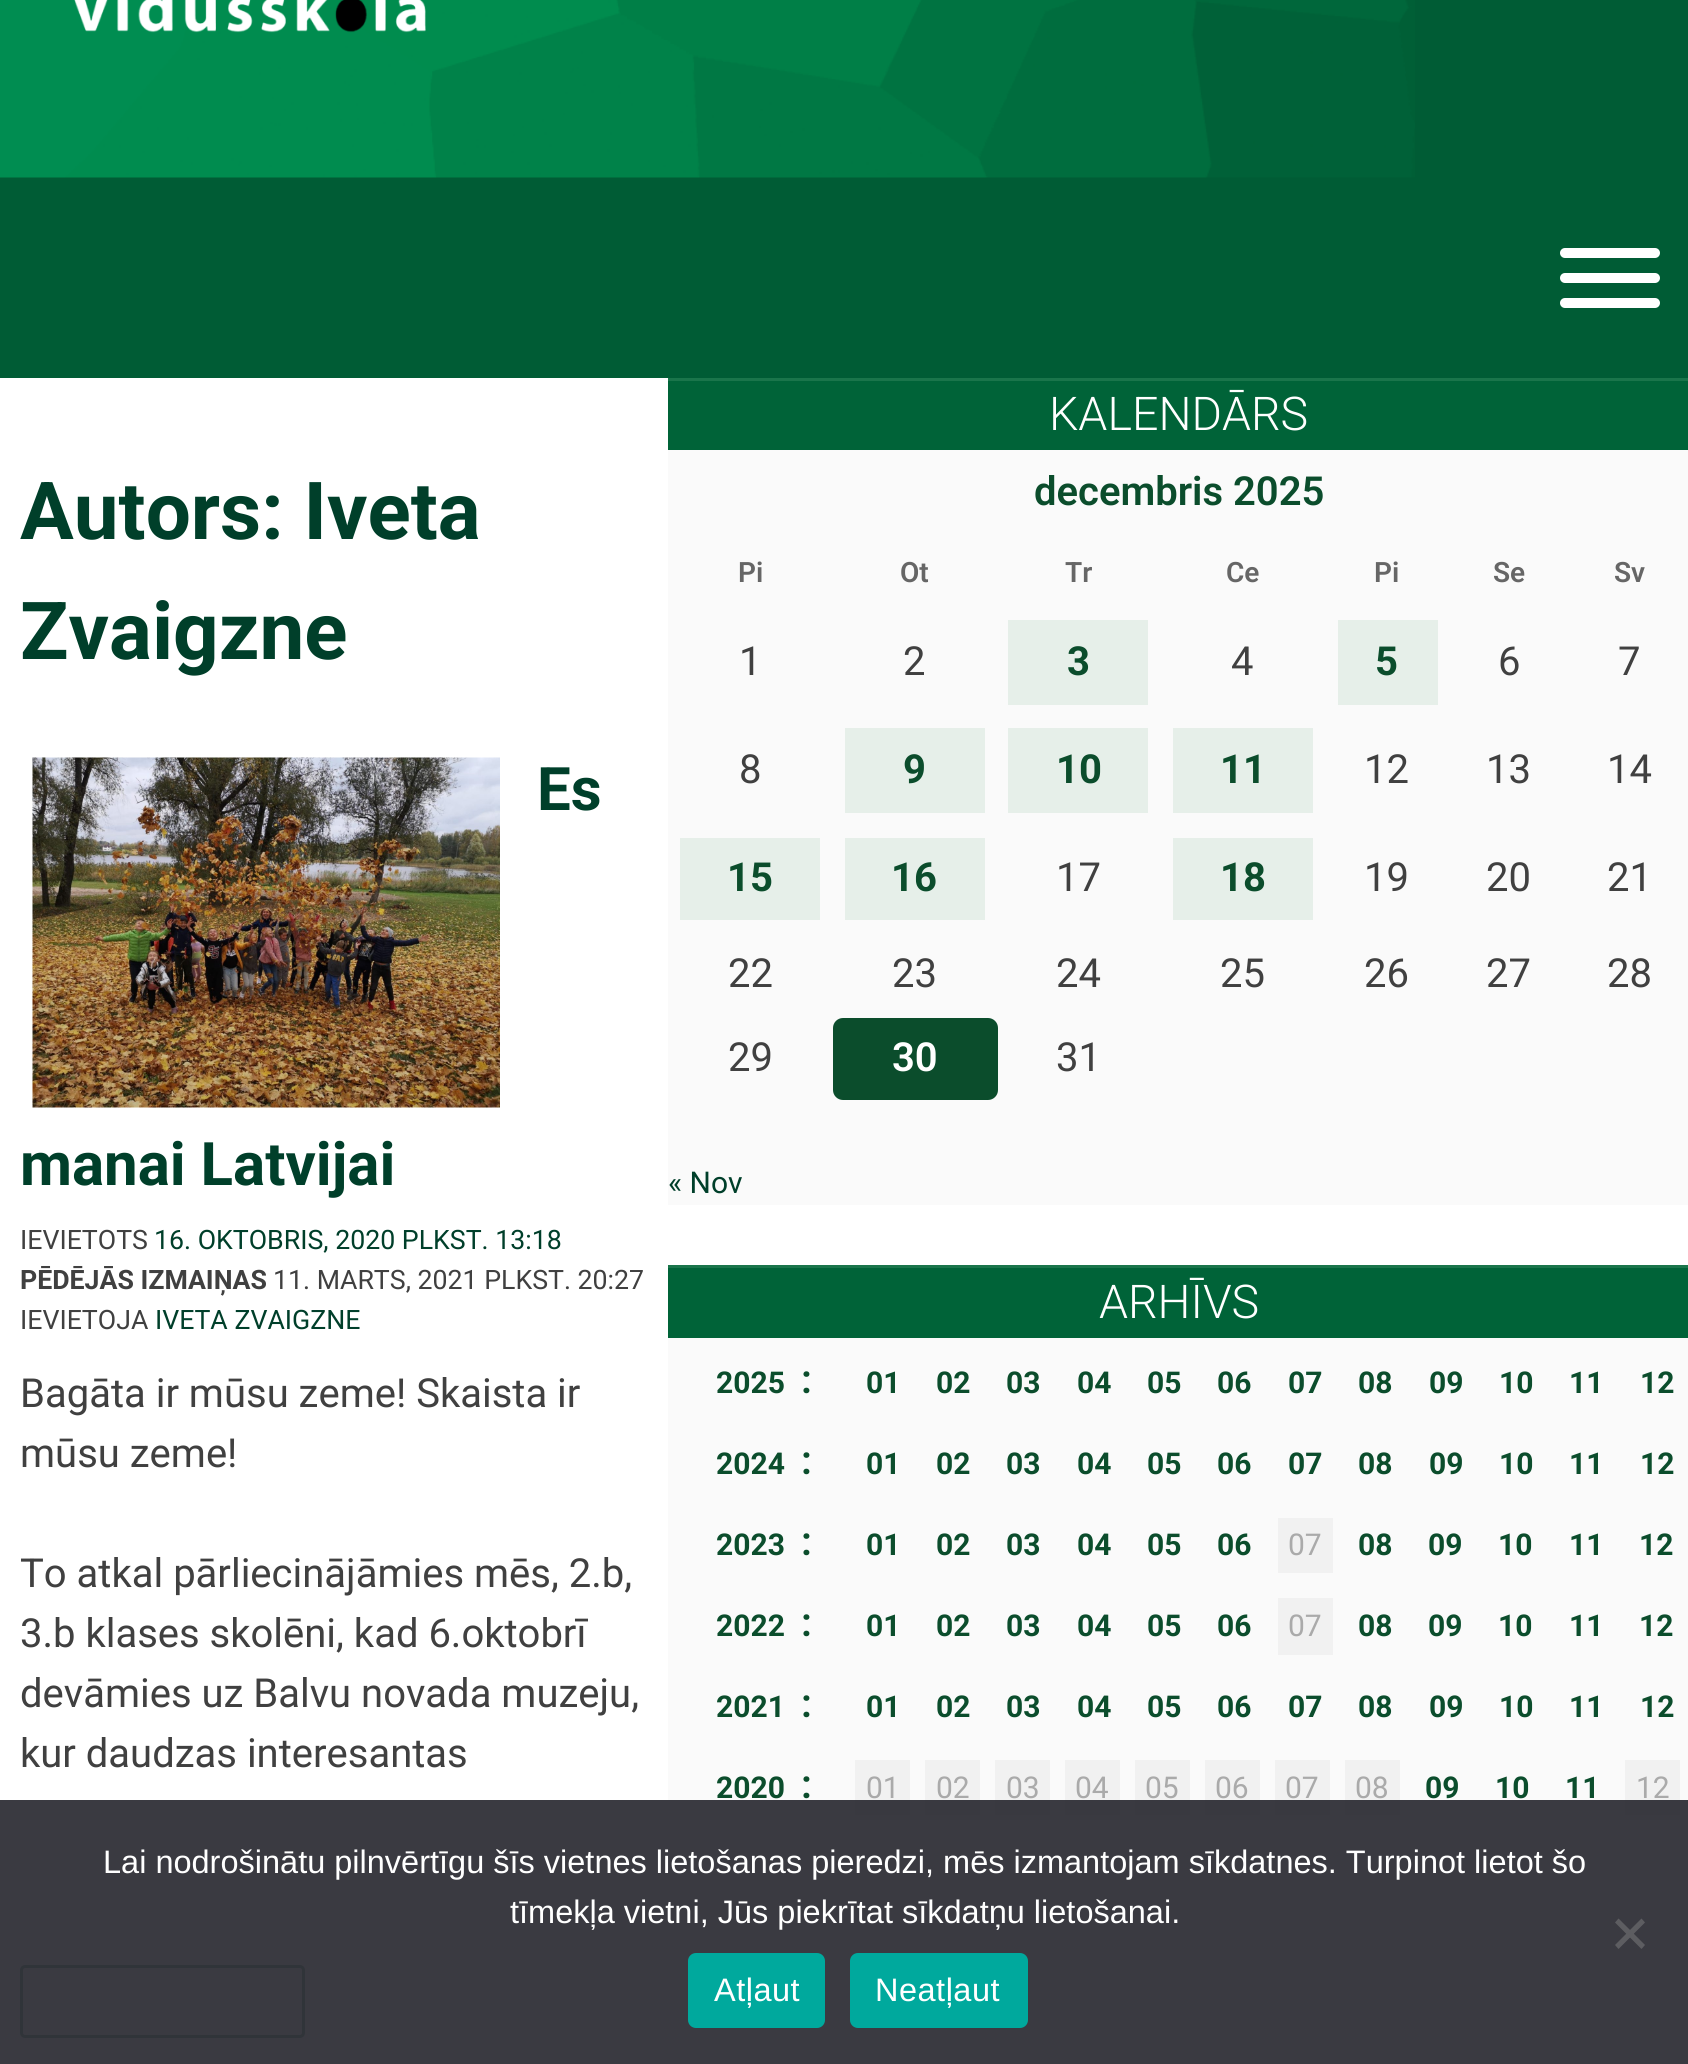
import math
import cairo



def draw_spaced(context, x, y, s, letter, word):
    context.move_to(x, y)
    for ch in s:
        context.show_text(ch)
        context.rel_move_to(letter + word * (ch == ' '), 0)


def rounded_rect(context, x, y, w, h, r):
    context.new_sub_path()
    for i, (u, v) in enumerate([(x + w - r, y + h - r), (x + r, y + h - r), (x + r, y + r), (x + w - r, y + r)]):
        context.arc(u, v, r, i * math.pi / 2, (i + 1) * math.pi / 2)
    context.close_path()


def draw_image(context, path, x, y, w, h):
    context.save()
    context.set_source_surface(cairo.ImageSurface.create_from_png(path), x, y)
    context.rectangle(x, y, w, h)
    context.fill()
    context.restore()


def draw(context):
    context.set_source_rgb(0, 92 / 255, 53 / 255)
    context.paint()
    draw_image(context, "images/1.png", 0, 0, 1415, 178)
    draw_image(context, "images/2.png", 74, 0, 352, 33)
    context.set_source_rgb(1, 1, 1)
    rounded_rect(context, 1560, 248, 100, 10, 5)
    context.fill()
    rounded_rect(context, 1560, 273, 100, 10, 5)
    context.fill()
    rounded_rect(context, 1560, 298, 100, 10, 5)
    context.fill()
    context.rectangle(0, 378, 1688, 1686)
    context.fill()
    draw_image(context, "images/3.png", 32, 757, 468, 351)
    rounded_rect(context, 21.5, 1966.5, 282, 70, 3.5)
    context.set_source_rgb(0, 92 / 255, 53 / 255)
    context.set_line_width(3)
    context.stroke()
    context.set_source_rgb(250 / 255, 250 / 255, 250 / 255)
    context.rectangle(668, 450, 1020, 755)
    context.fill()
    context.set_source_rgb(0, 99 / 255, 56 / 255)
    context.rectangle(668, 381, 1020, 69)
    context.fill()
    context.set_source_rgb(26 / 255, 117 / 255, 75 / 255)
    context.rectangle(668, 378, 1020, 3)
    context.fill()
    context.set_source_rgb(230 / 255, 239 / 255, 233 / 255)
    context.rectangle(1008, 620, 140, 85)
    context.fill()
    context.rectangle(1338, 620, 100, 85)
    context.fill()
    context.rectangle(845, 728, 140, 85)
    context.fill()
    context.rectangle(1008, 728, 140, 85)
    context.fill()
    context.rectangle(1173, 728, 140, 85)
    context.fill()
    context.rectangle(680, 838, 140, 82)
    context.fill()
    context.rectangle(845, 838, 140, 82)
    context.fill()
    context.rectangle(1173, 838, 140, 82)
    context.fill()
    context.set_source_rgb(11 / 255, 77 / 255, 44 / 255)
    rounded_rect(context, 833, 1018, 165, 82, 10)
    context.fill()
    context.set_source_rgb(250 / 255, 250 / 255, 250 / 255)
    context.rectangle(668, 1338, 1020, 497)
    context.fill()
    context.set_source_rgb(0, 99 / 255, 56 / 255)
    context.rectangle(668, 1268, 1020, 70)
    context.fill()
    context.set_source_rgb(26 / 255, 117 / 255, 75 / 255)
    context.rectangle(668, 1265, 1020, 3)
    context.fill()
    context.set_source_rgb(241 / 255, 241 / 255, 241 / 255)
    context.rectangle(1278, 1518, 55, 55)
    context.fill()
    context.rectangle(1278, 1598, 55, 57)
    context.fill()
    context.rectangle(855, 1760, 55, 55)
    context.fill()
    context.rectangle(925, 1760, 55, 55)
    context.fill()
    context.rectangle(995, 1760, 55, 55)
    context.fill()
    context.rectangle(1065, 1760, 55, 55)
    context.fill()
    context.rectangle(1135, 1760, 55, 55)
    context.fill()
    context.rectangle(1205, 1760, 55, 55)
    context.fill()
    context.rectangle(1275, 1760, 55, 55)
    context.fill()
    context.rectangle(1345, 1760, 55, 55)
    context.fill()
    context.rectangle(1625, 1760, 55, 55)
    context.fill()
    context.set_source_rgba(50 / 255, 50 / 255, 58 / 255, 0.96)
    context.rectangle(0, 1800, 1688, 264)
    context.fill()
    context.set_source_rgb(93 / 255, 93 / 255, 97 / 255)
    context.new_path()
    context.move_to(1641.5, 1918.5)
    context.line_to(1645, 1922.5)
    context.line_to(1618.5, 1949)
    context.line_to(1615, 1945)
    context.close_path()
    context.fill()
    context.new_path()
    context.move_to(1615, 1922.5)
    context.line_to(1618.5, 1918.5)
    context.line_to(1645, 1945)
    context.line_to(1641.5, 1949)
    context.close_path()
    context.fill()
    context.set_source_rgb(0, 169 / 255, 157 / 255)
    rounded_rect(context, 688, 1953, 137, 75, 8)
    context.fill()
    rounded_rect(context, 850, 1953, 178, 75, 8)
    context.fill()
    context.select_font_face("Roboto", cairo.FontSlant.NORMAL, cairo.FontWeight.BOLD)
    context.set_font_size(80)
    context.set_source_rgb(0, 63 / 255, 42 / 255)
    context.move_to(20, 539)
    context.show_text("Autors: Iveta")
    context.move_to(20, 659)
    context.show_text("Zvaigzne")
    context.set_font_size(60)
    context.move_to(537, 810)
    context.show_text("Es")
    context.move_to(20, 1185)
    context.show_text("manai Latvijai")
    context.select_font_face("Roboto")
    context.set_font_size(26.7)
    context.set_source_rgb(64 / 255, 64 / 255, 64 / 255)
    context.move_to(20, 1249)
    context.show_text("IEVIETOTS")
    context.set_source_rgb(0, 63 / 255, 42 / 255)
    context.move_to(154, 1249)
    context.show_text("16. OKTOBRIS, 2020 PLKST. 13:18")
    context.select_font_face("Roboto", cairo.FontSlant.NORMAL, cairo.FontWeight.BOLD)
    context.set_source_rgb(64 / 255, 64 / 255, 64 / 255)
    context.move_to(20, 1289)
    context.show_text("PĒDĒJĀS IZMAIŅAS")
    context.select_font_face("Roboto")
    context.move_to(273, 1289)
    context.show_text("11. MARTS, 2021 PLKST. 20:27")
    context.move_to(20, 1329)
    context.show_text("IEVIETOJA")
    context.set_source_rgb(0, 63 / 255, 42 / 255)
    context.move_to(155, 1329)
    context.show_text("IVETA ZVAIGZNE")
    context.set_font_size(40)
    context.set_source_rgb(64 / 255, 64 / 255, 64 / 255)
    context.move_to(20, 1407)
    context.show_text("Bagāta ir mūsu zeme! Skaista ir")
    context.move_to(20, 1467)
    context.show_text("mūsu zeme!")
    context.move_to(20, 1587)
    context.show_text("To atkal pārliecinājāmies mēs, 2.b,")
    context.move_to(20, 1647)
    context.show_text("3.b klases skolēni, kad 6.oktobrī")
    context.move_to(20, 1707)
    context.show_text("devāmies uz Balvu novada muzeju,")
    context.move_to(20, 1767)
    context.show_text("kur daudzas interesantas")
    context.select_font_face("Roboto Light")
    context.set_font_size(46.5)
    context.set_source_rgb(1, 1, 1)
    context.move_to(1049, 430)
    context.show_text("KALENDĀRS")
    context.select_font_face("Roboto SemiBold")
    context.set_font_size(40)
    context.set_source_rgb(11 / 255, 77 / 255, 44 / 255)
    context.move_to(1034, 505)
    context.show_text("decembris 2025")
    context.set_font_size(28)
    context.set_source_rgb(102 / 255, 102 / 255, 102 / 255)
    context.move_to(738, 582)
    context.show_text("Pi")
    context.move_to(900, 582)
    context.show_text("Ot")
    context.move_to(1065, 582)
    context.show_text("Tr")
    context.move_to(1226, 582)
    context.show_text("Ce")
    context.move_to(1374, 582)
    context.show_text("Pi")
    context.move_to(1493, 582)
    context.show_text("Se")
    context.move_to(1614, 582)
    context.show_text("Sv")
    context.select_font_face("Roboto")
    context.set_font_size(40)
    context.set_source_rgb(64 / 255, 64 / 255, 64 / 255)
    context.move_to(739, 675)
    context.show_text("1")
    context.move_to(903, 675)
    context.show_text("2")
    context.select_font_face("Roboto", cairo.FontSlant.NORMAL, cairo.FontWeight.BOLD)
    context.set_source_rgb(11 / 255, 77 / 255, 44 / 255)
    context.move_to(1067, 675)
    context.show_text("3")
    context.select_font_face("Roboto")
    context.set_source_rgb(64 / 255, 64 / 255, 64 / 255)
    context.move_to(1231, 675)
    context.show_text("4")
    context.select_font_face("Roboto", cairo.FontSlant.NORMAL, cairo.FontWeight.BOLD)
    context.set_source_rgb(11 / 255, 77 / 255, 44 / 255)
    context.move_to(1375, 675)
    context.show_text("5")
    context.select_font_face("Roboto")
    context.set_source_rgb(64 / 255, 64 / 255, 64 / 255)
    context.move_to(1498, 675)
    context.show_text("6")
    context.move_to(1618, 675)
    context.show_text("7")
    context.move_to(739, 783)
    context.show_text("8")
    context.select_font_face("Roboto", cairo.FontSlant.NORMAL, cairo.FontWeight.BOLD)
    context.set_source_rgb(11 / 255, 77 / 255, 44 / 255)
    context.move_to(903, 783)
    context.show_text("9")
    context.move_to(1056, 783)
    context.show_text("10")
    context.move_to(1220, 783)
    context.show_text("11")
    context.select_font_face("Roboto")
    context.set_source_rgb(64 / 255, 64 / 255, 64 / 255)
    context.move_to(1364, 783)
    context.show_text("12")
    context.move_to(1486, 783)
    context.show_text("13")
    context.move_to(1607, 783)
    context.show_text("14")
    context.select_font_face("Roboto", cairo.FontSlant.NORMAL, cairo.FontWeight.BOLD)
    context.set_source_rgb(11 / 255, 77 / 255, 44 / 255)
    context.move_to(727, 891)
    context.show_text("15")
    context.move_to(891, 891)
    context.show_text("16")
    context.select_font_face("Roboto")
    context.set_source_rgb(64 / 255, 64 / 255, 64 / 255)
    context.move_to(1056, 891)
    context.show_text("17")
    context.select_font_face("Roboto", cairo.FontSlant.NORMAL, cairo.FontWeight.BOLD)
    context.set_source_rgb(11 / 255, 77 / 255, 44 / 255)
    context.move_to(1220, 891)
    context.show_text("18")
    context.select_font_face("Roboto")
    context.set_source_rgb(64 / 255, 64 / 255, 64 / 255)
    context.move_to(1364, 891)
    context.show_text("19")
    context.move_to(1486, 891)
    context.show_text("20")
    context.move_to(1607, 891)
    context.show_text("21")
    context.move_to(728, 987)
    context.show_text("22")
    context.move_to(892, 987)
    context.show_text("23")
    context.move_to(1056, 987)
    context.show_text("24")
    context.move_to(1220, 987)
    context.show_text("25")
    context.move_to(1364, 987)
    context.show_text("26")
    context.move_to(1486, 987)
    context.show_text("27")
    context.move_to(1607, 987)
    context.show_text("28")
    context.move_to(728, 1071)
    context.show_text("29")
    context.select_font_face("Roboto SemiBold")
    context.set_source_rgb(1, 1, 1)
    context.move_to(892, 1071)
    context.show_text("30")
    context.select_font_face("Roboto")
    context.set_source_rgb(64 / 255, 64 / 255, 64 / 255)
    context.move_to(1056, 1071)
    context.show_text("31")
    context.set_font_size(30)
    context.set_source_rgb(0, 63 / 255, 42 / 255)
    context.move_to(668, 1193)
    context.show_text("« Nov")
    context.select_font_face("Roboto Light")
    context.set_font_size(46.5)
    context.set_source_rgb(1, 1, 1)
    context.move_to(1099, 1318)
    context.show_text("ARHĪVS")
    context.select_font_face("Roboto", cairo.FontSlant.NORMAL, cairo.FontWeight.BOLD)
    context.set_font_size(30)
    context.set_source_rgb(11 / 255, 77 / 255, 44 / 255)
    context.move_to(716, 1393)
    context.show_text("2025")
    context.select_font_face("Roboto SemiBold")
    context.set_font_size(40)
    context.move_to(801, 1393)
    context.show_text(":")
    context.select_font_face("Roboto", cairo.FontSlant.NORMAL, cairo.FontWeight.BOLD)
    context.set_font_size(30)
    context.move_to(866, 1393)
    context.show_text("01")
    context.move_to(936, 1393)
    context.show_text("02")
    context.move_to(1006, 1393)
    context.show_text("03")
    context.move_to(1077, 1393)
    context.show_text("04")
    context.move_to(1147, 1393)
    context.show_text("05")
    context.move_to(1217, 1393)
    context.show_text("06")
    context.move_to(1288, 1393)
    context.show_text("07")
    context.move_to(1358, 1393)
    context.show_text("08")
    context.move_to(1429, 1393)
    context.show_text("09")
    context.move_to(1499, 1393)
    context.show_text("10")
    context.move_to(1569, 1393)
    context.show_text("11")
    context.move_to(1640, 1393)
    context.show_text("12")
    context.move_to(716, 1474)
    context.show_text("2024")
    context.select_font_face("Roboto SemiBold")
    context.set_font_size(40)
    context.move_to(801, 1474)
    context.show_text(":")
    context.select_font_face("Roboto", cairo.FontSlant.NORMAL, cairo.FontWeight.BOLD)
    context.set_font_size(30)
    context.move_to(866, 1474)
    context.show_text("01")
    context.move_to(936, 1474)
    context.show_text("02")
    context.move_to(1006, 1474)
    context.show_text("03")
    context.move_to(1077, 1474)
    context.show_text("04")
    context.move_to(1147, 1474)
    context.show_text("05")
    context.move_to(1217, 1474)
    context.show_text("06")
    context.move_to(1288, 1474)
    context.show_text("07")
    context.move_to(1358, 1474)
    context.show_text("08")
    context.move_to(1429, 1474)
    context.show_text("09")
    context.move_to(1499, 1474)
    context.show_text("10")
    context.move_to(1569, 1474)
    context.show_text("11")
    context.move_to(1640, 1474)
    context.show_text("12")
    context.move_to(716, 1555)
    context.show_text("2023")
    context.select_font_face("Roboto SemiBold")
    context.set_font_size(40)
    context.move_to(801, 1555)
    context.show_text(":")
    context.select_font_face("Roboto", cairo.FontSlant.NORMAL, cairo.FontWeight.BOLD)
    context.set_font_size(30)
    context.move_to(866, 1555)
    context.show_text("01")
    context.move_to(936, 1555)
    context.show_text("02")
    context.move_to(1006, 1555)
    context.show_text("03")
    context.move_to(1077, 1555)
    context.show_text("04")
    context.move_to(1147, 1555)
    context.show_text("05")
    context.move_to(1217, 1555)
    context.show_text("06")
    context.select_font_face("Roboto")
    context.set_source_rgb(170 / 255, 170 / 255, 170 / 255)
    context.move_to(1288, 1555)
    context.show_text("07")
    context.select_font_face("Roboto", cairo.FontSlant.NORMAL, cairo.FontWeight.BOLD)
    context.set_source_rgb(11 / 255, 77 / 255, 44 / 255)
    context.move_to(1358, 1555)
    context.show_text("08")
    context.move_to(1428, 1555)
    context.show_text("09")
    context.move_to(1498, 1555)
    context.show_text("10")
    context.move_to(1569, 1555)
    context.show_text("11")
    context.move_to(1639, 1555)
    context.show_text("12")
    context.move_to(716, 1636)
    context.show_text("2022")
    context.select_font_face("Roboto SemiBold")
    context.set_font_size(40)
    context.move_to(801, 1636)
    context.show_text(":")
    context.select_font_face("Roboto", cairo.FontSlant.NORMAL, cairo.FontWeight.BOLD)
    context.set_font_size(30)
    context.move_to(866, 1636)
    context.show_text("01")
    context.move_to(936, 1636)
    context.show_text("02")
    context.move_to(1006, 1636)
    context.show_text("03")
    context.move_to(1077, 1636)
    context.show_text("04")
    context.move_to(1147, 1636)
    context.show_text("05")
    context.move_to(1217, 1636)
    context.show_text("06")
    context.select_font_face("Roboto")
    context.set_source_rgb(170 / 255, 170 / 255, 170 / 255)
    context.move_to(1288, 1636)
    context.show_text("07")
    context.select_font_face("Roboto", cairo.FontSlant.NORMAL, cairo.FontWeight.BOLD)
    context.set_source_rgb(11 / 255, 77 / 255, 44 / 255)
    context.move_to(1358, 1636)
    context.show_text("08")
    context.move_to(1428, 1636)
    context.show_text("09")
    context.move_to(1498, 1636)
    context.show_text("10")
    context.move_to(1569, 1636)
    context.show_text("11")
    context.move_to(1639, 1636)
    context.show_text("12")
    context.move_to(716, 1717)
    context.show_text("2021")
    context.select_font_face("Roboto SemiBold")
    context.set_font_size(40)
    context.move_to(801, 1717)
    context.show_text(":")
    context.select_font_face("Roboto", cairo.FontSlant.NORMAL, cairo.FontWeight.BOLD)
    context.set_font_size(30)
    context.move_to(866, 1717)
    context.show_text("01")
    context.move_to(936, 1717)
    context.show_text("02")
    context.move_to(1006, 1717)
    context.show_text("03")
    context.move_to(1077, 1717)
    context.show_text("04")
    context.move_to(1147, 1717)
    context.show_text("05")
    context.move_to(1217, 1717)
    context.show_text("06")
    context.move_to(1288, 1717)
    context.show_text("07")
    context.move_to(1358, 1717)
    context.show_text("08")
    context.move_to(1429, 1717)
    context.show_text("09")
    context.move_to(1499, 1717)
    context.show_text("10")
    context.move_to(1569, 1717)
    context.show_text("11")
    context.move_to(1640, 1717)
    context.show_text("12")
    context.move_to(716, 1798)
    context.show_text("2020")
    context.select_font_face("Roboto SemiBold")
    context.set_font_size(40)
    context.move_to(801, 1798)
    context.show_text(":")
    context.select_font_face("Roboto")
    context.set_font_size(30)
    context.set_source_rgb(170 / 255, 170 / 255, 170 / 255)
    context.move_to(866, 1798)
    context.show_text("01")
    context.move_to(936, 1798)
    context.show_text("02")
    context.move_to(1006, 1798)
    context.show_text("03")
    context.move_to(1075, 1798)
    context.show_text("04")
    context.move_to(1145, 1798)
    context.show_text("05")
    context.move_to(1215, 1798)
    context.show_text("06")
    context.move_to(1285, 1798)
    context.show_text("07")
    context.move_to(1355, 1798)
    context.show_text("08")
    context.select_font_face("Roboto", cairo.FontSlant.NORMAL, cairo.FontWeight.BOLD)
    context.set_source_rgb(11 / 255, 77 / 255, 44 / 255)
    context.move_to(1425, 1798)
    context.show_text("09")
    context.move_to(1495, 1798)
    context.show_text("10")
    context.move_to(1565, 1798)
    context.show_text("11")
    context.select_font_face("Roboto")
    context.set_source_rgb(170 / 255, 170 / 255, 170 / 255)
    context.move_to(1636, 1798)
    context.show_text("12")
    context.select_font_face("Liberation Sans")
    context.set_font_size(32.5)
    context.set_source_rgb(1, 1, 1)
    context.move_to(103, 1873)
    context.show_text("Lai nodrošinātu pilnvērtīgu šīs vietnes lietošanas pieredzi, mēs izmantojam sīkdatnes. Turpinot lietot šo")
    context.move_to(510, 1923)
    context.show_text("tīmekļa vietni, Jūs piekrītat sīkdatņu lietošanai.")
    draw_spaced(context, 714, 2001, "Atļaut", 0.5, 0)
    draw_spaced(context, 875, 2001, "Neatļaut", 0.5, 0)


surface = cairo.ImageSurface(cairo.Format.RGB24, 1688, 2064)
context = cairo.Context(surface)
options = cairo.FontOptions()
options.set_hint_metrics(cairo.HintMetrics.OFF)
options.set_hint_style(cairo.HintStyle.NONE)
context.set_font_options(options)
context.set_miter_limit(4)
draw(context)
surface.write_to_png("out.png")
